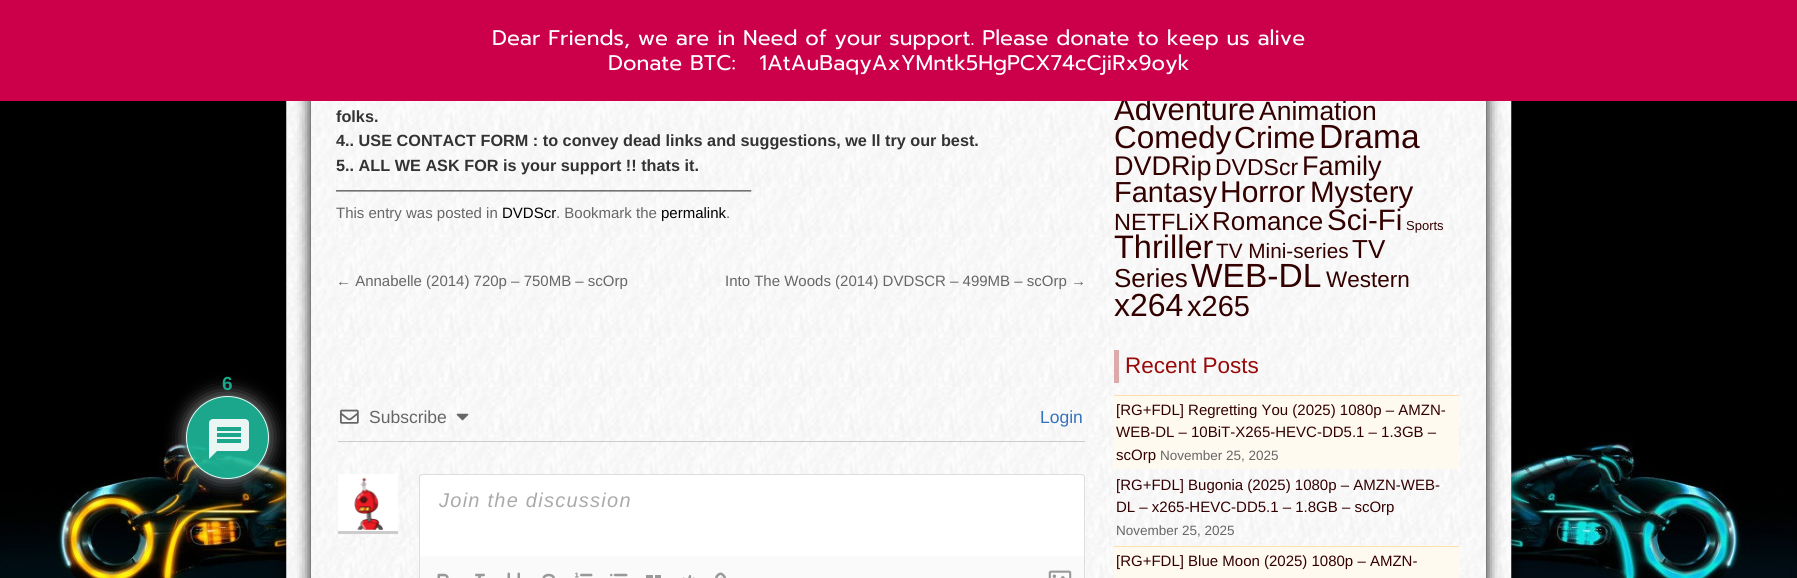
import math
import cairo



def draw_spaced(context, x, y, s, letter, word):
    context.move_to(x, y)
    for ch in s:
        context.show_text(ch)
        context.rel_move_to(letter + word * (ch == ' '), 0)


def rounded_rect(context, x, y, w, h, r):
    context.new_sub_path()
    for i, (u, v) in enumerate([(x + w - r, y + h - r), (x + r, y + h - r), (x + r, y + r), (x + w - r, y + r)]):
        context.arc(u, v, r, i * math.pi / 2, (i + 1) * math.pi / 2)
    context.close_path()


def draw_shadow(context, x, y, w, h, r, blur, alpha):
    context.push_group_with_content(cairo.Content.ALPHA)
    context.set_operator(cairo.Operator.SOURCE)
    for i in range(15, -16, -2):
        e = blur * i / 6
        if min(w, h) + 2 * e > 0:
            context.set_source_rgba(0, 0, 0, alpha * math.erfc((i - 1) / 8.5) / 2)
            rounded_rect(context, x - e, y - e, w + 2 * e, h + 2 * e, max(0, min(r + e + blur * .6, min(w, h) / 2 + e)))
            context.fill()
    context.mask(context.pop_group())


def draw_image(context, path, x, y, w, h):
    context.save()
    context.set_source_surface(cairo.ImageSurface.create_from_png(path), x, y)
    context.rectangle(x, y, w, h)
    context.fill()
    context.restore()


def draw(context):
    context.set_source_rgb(1, 1, 1)
    context.paint()
    draw_image(context, "images/1.png", 0, 101, 1797, 477)
    context.set_source_rgb(0, 0, 0)
    draw_shadow(context, 286, -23, 1225, 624, 0, 7.5, 1)
    draw_image(context, "images/3.png", 286, 101, 1226, 477)
    context.save()
    context.set_fill_rule(cairo.FillRule.EVEN_ODD)
    context.new_path()
    context.move_to(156, 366)
    context.line_to(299, 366)
    context.line_to(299, 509)
    context.line_to(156, 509)
    context.close_path()
    context.move_to(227.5, 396)
    context.curve_to(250.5, 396, 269, 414.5, 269, 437.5)
    context.curve_to(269, 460.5, 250.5, 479, 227.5, 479)
    context.curve_to(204.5, 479, 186, 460.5, 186, 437.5)
    context.curve_to(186, 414.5, 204.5, 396, 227.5, 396)
    context.close_path()
    context.clip()
    context.set_source_rgb(170 / 255, 170 / 255, 170 / 255)
    draw_shadow(context, 186, 396, 83, 83, 41.5, 9.5, 0.9)
    context.restore()
    context.set_source_rgba(29 / 255, 185 / 255, 154 / 255, 0.9)
    context.arc(227.5, 437.5, 41.5, 0, 2 * math.pi)
    context.fill()
    context.arc(227.5, 437.5, 41, 0, 2 * math.pi)
    context.set_source_rgba(1, 1, 1, 0.9)
    context.set_line_width(1)
    context.stroke()
    draw_image(context, "images/2.png", 209, 419, 40, 40)
    context.save()
    context.set_fill_rule(cairo.FillRule.EVEN_ODD)
    context.new_path()
    context.move_to(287, 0)
    context.line_to(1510, 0)
    context.line_to(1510, 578)
    context.line_to(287, 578)
    context.close_path()
    context.move_to(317, -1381)
    context.line_to(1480, -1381)
    context.curve_to(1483.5, -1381, 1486, -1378.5, 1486, -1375)
    context.line_to(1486, 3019)
    context.curve_to(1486, 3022.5, 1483.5, 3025, 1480, 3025)
    context.line_to(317, 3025)
    context.curve_to(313.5, 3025, 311, 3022.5, 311, 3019)
    context.line_to(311, -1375)
    context.curve_to(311, -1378.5, 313.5, -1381, 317, -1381)
    context.close_path()
    context.clip()
    context.set_source_rgb(0, 0, 0)
    draw_shadow(context, 311, -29, 1175, 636, 6, 7.5, 1)
    context.restore()
    context.set_source_rgb(204 / 255, 204 / 255, 204 / 255)
    context.rectangle(338, 441, 747, 1)
    context.fill()
    draw_image(context, "images/4.png", 340, 409, 19, 15)
    draw_image(context, "images/5.png", 456, 413, 13, 8)
    context.set_source_rgb(1, 1, 1)
    context.rectangle(338, 474, 60, 57)
    context.fill()
    draw_image(context, "images/6.png", 354, 477, 29, 53)
    context.set_source_rgb(204 / 255, 204 / 255, 204 / 255)
    context.rectangle(338, 531, 60, 3)
    context.fill()
    context.set_source_rgb(1, 1, 1)
    context.new_path()
    context.move_to(423, 474)
    context.line_to(1081, 474)
    context.curve_to(1083, 474, 1085, 476, 1085, 478)
    context.line_to(1085, 556)
    context.line_to(419, 556)
    context.line_to(419, 478)
    context.curve_to(419, 476, 421, 474, 423, 474)
    context.close_path()
    context.fill()
    context.set_source_rgb(221 / 255, 221 / 255, 221 / 255)
    context.set_fill_rule(cairo.FillRule.EVEN_ODD)
    context.new_path()
    context.move_to(422, 474)
    context.line_to(1081, 474)
    context.curve_to(1083, 474, 1085, 475, 1085, 478)
    context.line_to(1085, 556)
    context.line_to(419, 556)
    context.line_to(419, 478)
    context.curve_to(419, 475, 420, 474, 422, 474)
    context.close_path()
    context.move_to(422, 475)
    context.line_to(1081, 475)
    context.curve_to(1083, 475, 1084, 476, 1084, 478)
    context.line_to(1084, 556)
    context.line_to(420, 556)
    context.line_to(420, 478)
    context.curve_to(420, 476, 421, 475, 422, 475)
    context.close_path()
    context.fill()
    context.set_source_rgb(250 / 255, 250 / 255, 250 / 255)
    context.rectangle(420, 556, 664, 22)
    context.fill()
    context.set_source_rgb(221 / 255, 221 / 255, 221 / 255)
    context.new_path()
    context.move_to(419, 556)
    context.line_to(1085, 556)
    context.line_to(1085, 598)
    context.curve_to(1085, 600, 1083, 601, 1081, 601)
    context.line_to(422, 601)
    context.curve_to(420, 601, 419, 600, 419, 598)
    context.close_path()
    context.move_to(420, 556)
    context.line_to(1084, 556)
    context.line_to(1084, 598)
    context.curve_to(1084, 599, 1083, 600, 1081, 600)
    context.line_to(422, 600)
    context.curve_to(421, 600, 420, 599, 420, 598)
    context.close_path()
    context.fill()
    draw_image(context, "images/7.png", 437, 573, 12, 5)
    draw_image(context, "images/8.png", 475, 573, 10, 5)
    draw_image(context, "images/9.png", 507, 572, 13, 6)
    draw_image(context, "images/10.png", 542, 573, 13, 5)
    draw_image(context, "images/11.png", 575, 572, 18, 6)
    draw_image(context, "images/12.png", 610, 573, 18, 4)
    draw_image(context, "images/13.png", 646, 575, 15, 3)
    draw_image(context, "images/14.png", 683, 575, 12, 3)
    draw_image(context, "images/15.png", 715, 572, 11, 6)
    draw_image(context, "images/16.png", 1048, 570, 24, 8)
    context.set_source_rgb(221 / 255, 170 / 255, 170 / 255)
    context.rectangle(1114, 350, 5, 33)
    context.fill()
    context.set_source_rgb(1, 250 / 255, 240 / 255)
    context.rectangle(1114, 396, 345, 73)
    context.fill()
    context.set_source_rgb(1, 222 / 255, 173 / 255)
    context.rectangle(1114, 395, 345, 1)
    context.fill()
    context.set_source_rgb(1, 250 / 255, 240 / 255)
    context.rectangle(1114, 547, 345, 31)
    context.fill()
    context.set_source_rgb(1, 222 / 255, 173 / 255)
    context.rectangle(1114, 546, 345, 1)
    context.fill()
    context.select_font_face("Liberation Sans", cairo.FontSlant.NORMAL, cairo.FontWeight.BOLD)
    context.set_font_size(19)
    context.set_source_rgb(26 / 255, 167 / 255, 139 / 255)
    context.move_to(222, 390)
    context.show_text("6")
    context.set_font_size(16.25)
    context.set_source_rgb(51 / 255, 51 / 255, 51 / 255)
    context.move_to(336, 122)
    context.show_text("folks.")
    context.move_to(336, 146)
    context.show_text("4.. USE CONTACT FORM : to convey dead links and suggestions, we ll try our best.")
    context.move_to(336, 171)
    context.show_text("5.. ALL WE ASK FOR is your support !! thats it.")
    context.select_font_face("Liberation Sans")
    context.move_to(336, 195)
    context.show_text("—————————————————————————–")
    context.set_font_size(15)
    context.set_source_rgb(102 / 255, 102 / 255, 102 / 255)
    context.move_to(336, 218)
    context.show_text("This entry was posted in")
    context.set_source_rgb(0, 0, 0)
    context.move_to(502, 218)
    context.show_text("DVDScr")
    context.set_source_rgb(102 / 255, 102 / 255, 102 / 255)
    context.move_to(556, 218)
    context.show_text(". Bookmark the")
    context.set_source_rgb(0, 0, 0)
    context.move_to(661, 218)
    context.show_text("permalink")
    context.set_source_rgb(102 / 255, 102 / 255, 102 / 255)
    context.move_to(726, 218)
    context.show_text(".")
    context.move_to(336, 286)
    context.show_text("← Annabelle (2014) 720p – 750MB – scOrp")
    context.move_to(725, 286)
    context.show_text("Into The Woods (2014) DVDSCR – 499MB – scOrp →")
    context.set_font_size(17.5)
    context.move_to(369, 423)
    context.show_text("Subscribe")
    context.set_source_rgb(50 / 255, 114 / 255, 191 / 255)
    context.move_to(1040, 423)
    context.show_text("Login")
    context.select_font_face("Liberation Sans", cairo.FontSlant.ITALIC)
    context.set_font_size(20)
    context.set_source_rgb(170 / 255, 170 / 255, 170 / 255)
    draw_spaced(context, 439, 507, "Join the discussion", 1.25, 0)
    context.select_font_face("Liberation Sans")
    context.set_font_size(31)
    context.set_source_rgb(51 / 255, 0, 0)
    context.move_to(1114, 120)
    context.show_text("Adventure")
    context.set_font_size(26.5)
    context.move_to(1259, 120)
    context.show_text("Animation")
    context.set_source_rgb(204 / 255, 0, 74 / 255)
    context.rectangle(0, 0, 1797, 101)
    context.fill()
    context.select_font_face("Prompt")
    context.set_font_size(21.25)
    context.set_source_rgb(1, 1, 1)
    context.move_to(608, 70)
    context.show_text("Donate BTC:   1AtAuBaqyAxYMntk5HgPCX74cCjiRx9oyk")
    context.move_to(492, 45)
    context.show_text("Dear Friends, we are in Need of your support. Please donate to keep us alive")
    context.select_font_face("Liberation Sans")
    context.set_font_size(31.5)
    context.set_source_rgb(51 / 255, 0, 0)
    context.move_to(1114, 148)
    context.show_text("Comedy")
    context.set_font_size(30.5)
    context.move_to(1234, 148)
    context.show_text("Crime")
    context.set_font_size(33.5)
    context.move_to(1319, 148)
    context.show_text("Drama")
    context.set_font_size(27)
    context.move_to(1114, 175)
    context.show_text("DVDRip")
    context.set_font_size(23)
    context.move_to(1215, 175)
    context.show_text("DVDScr")
    context.set_font_size(27)
    context.move_to(1302, 175)
    context.show_text("Family")
    context.set_font_size(29)
    context.move_to(1114, 202)
    context.show_text("Fantasy")
    context.set_font_size(30)
    context.move_to(1220, 202)
    context.show_text("Horror")
    context.set_font_size(29.5)
    context.move_to(1310, 202)
    context.show_text("Mystery")
    context.set_font_size(23.5)
    context.move_to(1114, 230)
    context.show_text("NETFLiX")
    context.set_font_size(26)
    context.move_to(1212, 230)
    context.show_text("Romance")
    context.set_font_size(29.5)
    context.move_to(1327, 230)
    context.show_text("Sci-Fi")
    context.set_font_size(13)
    context.move_to(1406, 230)
    context.show_text("Sports")
    context.set_font_size(32.5)
    context.move_to(1114, 258)
    context.show_text("Thriller")
    context.set_font_size(20.75)
    context.move_to(1216, 258)
    context.show_text("TV Mini-series")
    context.set_font_size(26)
    context.move_to(1352, 258)
    context.show_text("TV")
    context.move_to(1114, 287)
    context.show_text("Series")
    context.set_font_size(33.5)
    context.move_to(1191, 287)
    context.show_text("WEB-DL")
    context.set_font_size(22.5)
    context.move_to(1326, 287)
    context.show_text("Western")
    context.set_font_size(32)
    context.move_to(1114, 316)
    context.show_text("x264")
    context.set_font_size(29)
    context.move_to(1187, 316)
    context.show_text("x265")
    context.set_font_size(22.5)
    context.set_source_rgb(153 / 255, 9 / 255, 10 / 255)
    context.move_to(1125, 373)
    context.show_text("Recent Posts")
    context.set_font_size(15)
    context.set_source_rgb(51 / 255, 0, 0)
    context.move_to(1116, 415)
    context.show_text("[RG+FDL] Regretting You (2025) 1080p – AMZN-")
    context.move_to(1116, 437)
    context.show_text("WEB-DL – 10BiT-X265-HEVC-DD5.1 – 1.3GB –")
    context.move_to(1116, 460)
    context.show_text("scOrp")
    context.set_font_size(13.5)
    context.set_source_rgb(102 / 255, 102 / 255, 102 / 255)
    context.move_to(1160, 460)
    context.show_text("November 25, 2025")
    context.set_font_size(15)
    context.set_source_rgb(51 / 255, 0, 0)
    context.move_to(1116, 490)
    context.show_text("[RG+FDL] Bugonia (2025) 1080p – AMZN-WEB-")
    context.move_to(1116, 512)
    context.show_text("DL – x265-HEVC-DD5.1 – 1.8GB – scOrp")
    context.set_font_size(13.5)
    context.set_source_rgb(102 / 255, 102 / 255, 102 / 255)
    context.move_to(1116, 535)
    context.show_text("November 25, 2025")
    context.set_font_size(15)
    context.set_source_rgb(51 / 255, 0, 0)
    context.move_to(1116, 566)
    context.show_text("[RG+FDL] Blue Moon (2025) 1080p – AMZN-")


surface = cairo.ImageSurface(cairo.Format.RGB24, 1797, 578)
context = cairo.Context(surface)
options = cairo.FontOptions()
options.set_hint_metrics(cairo.HintMetrics.OFF)
options.set_hint_style(cairo.HintStyle.NONE)
context.set_font_options(options)
context.set_miter_limit(4)
draw(context)
surface.write_to_png("out.png")
